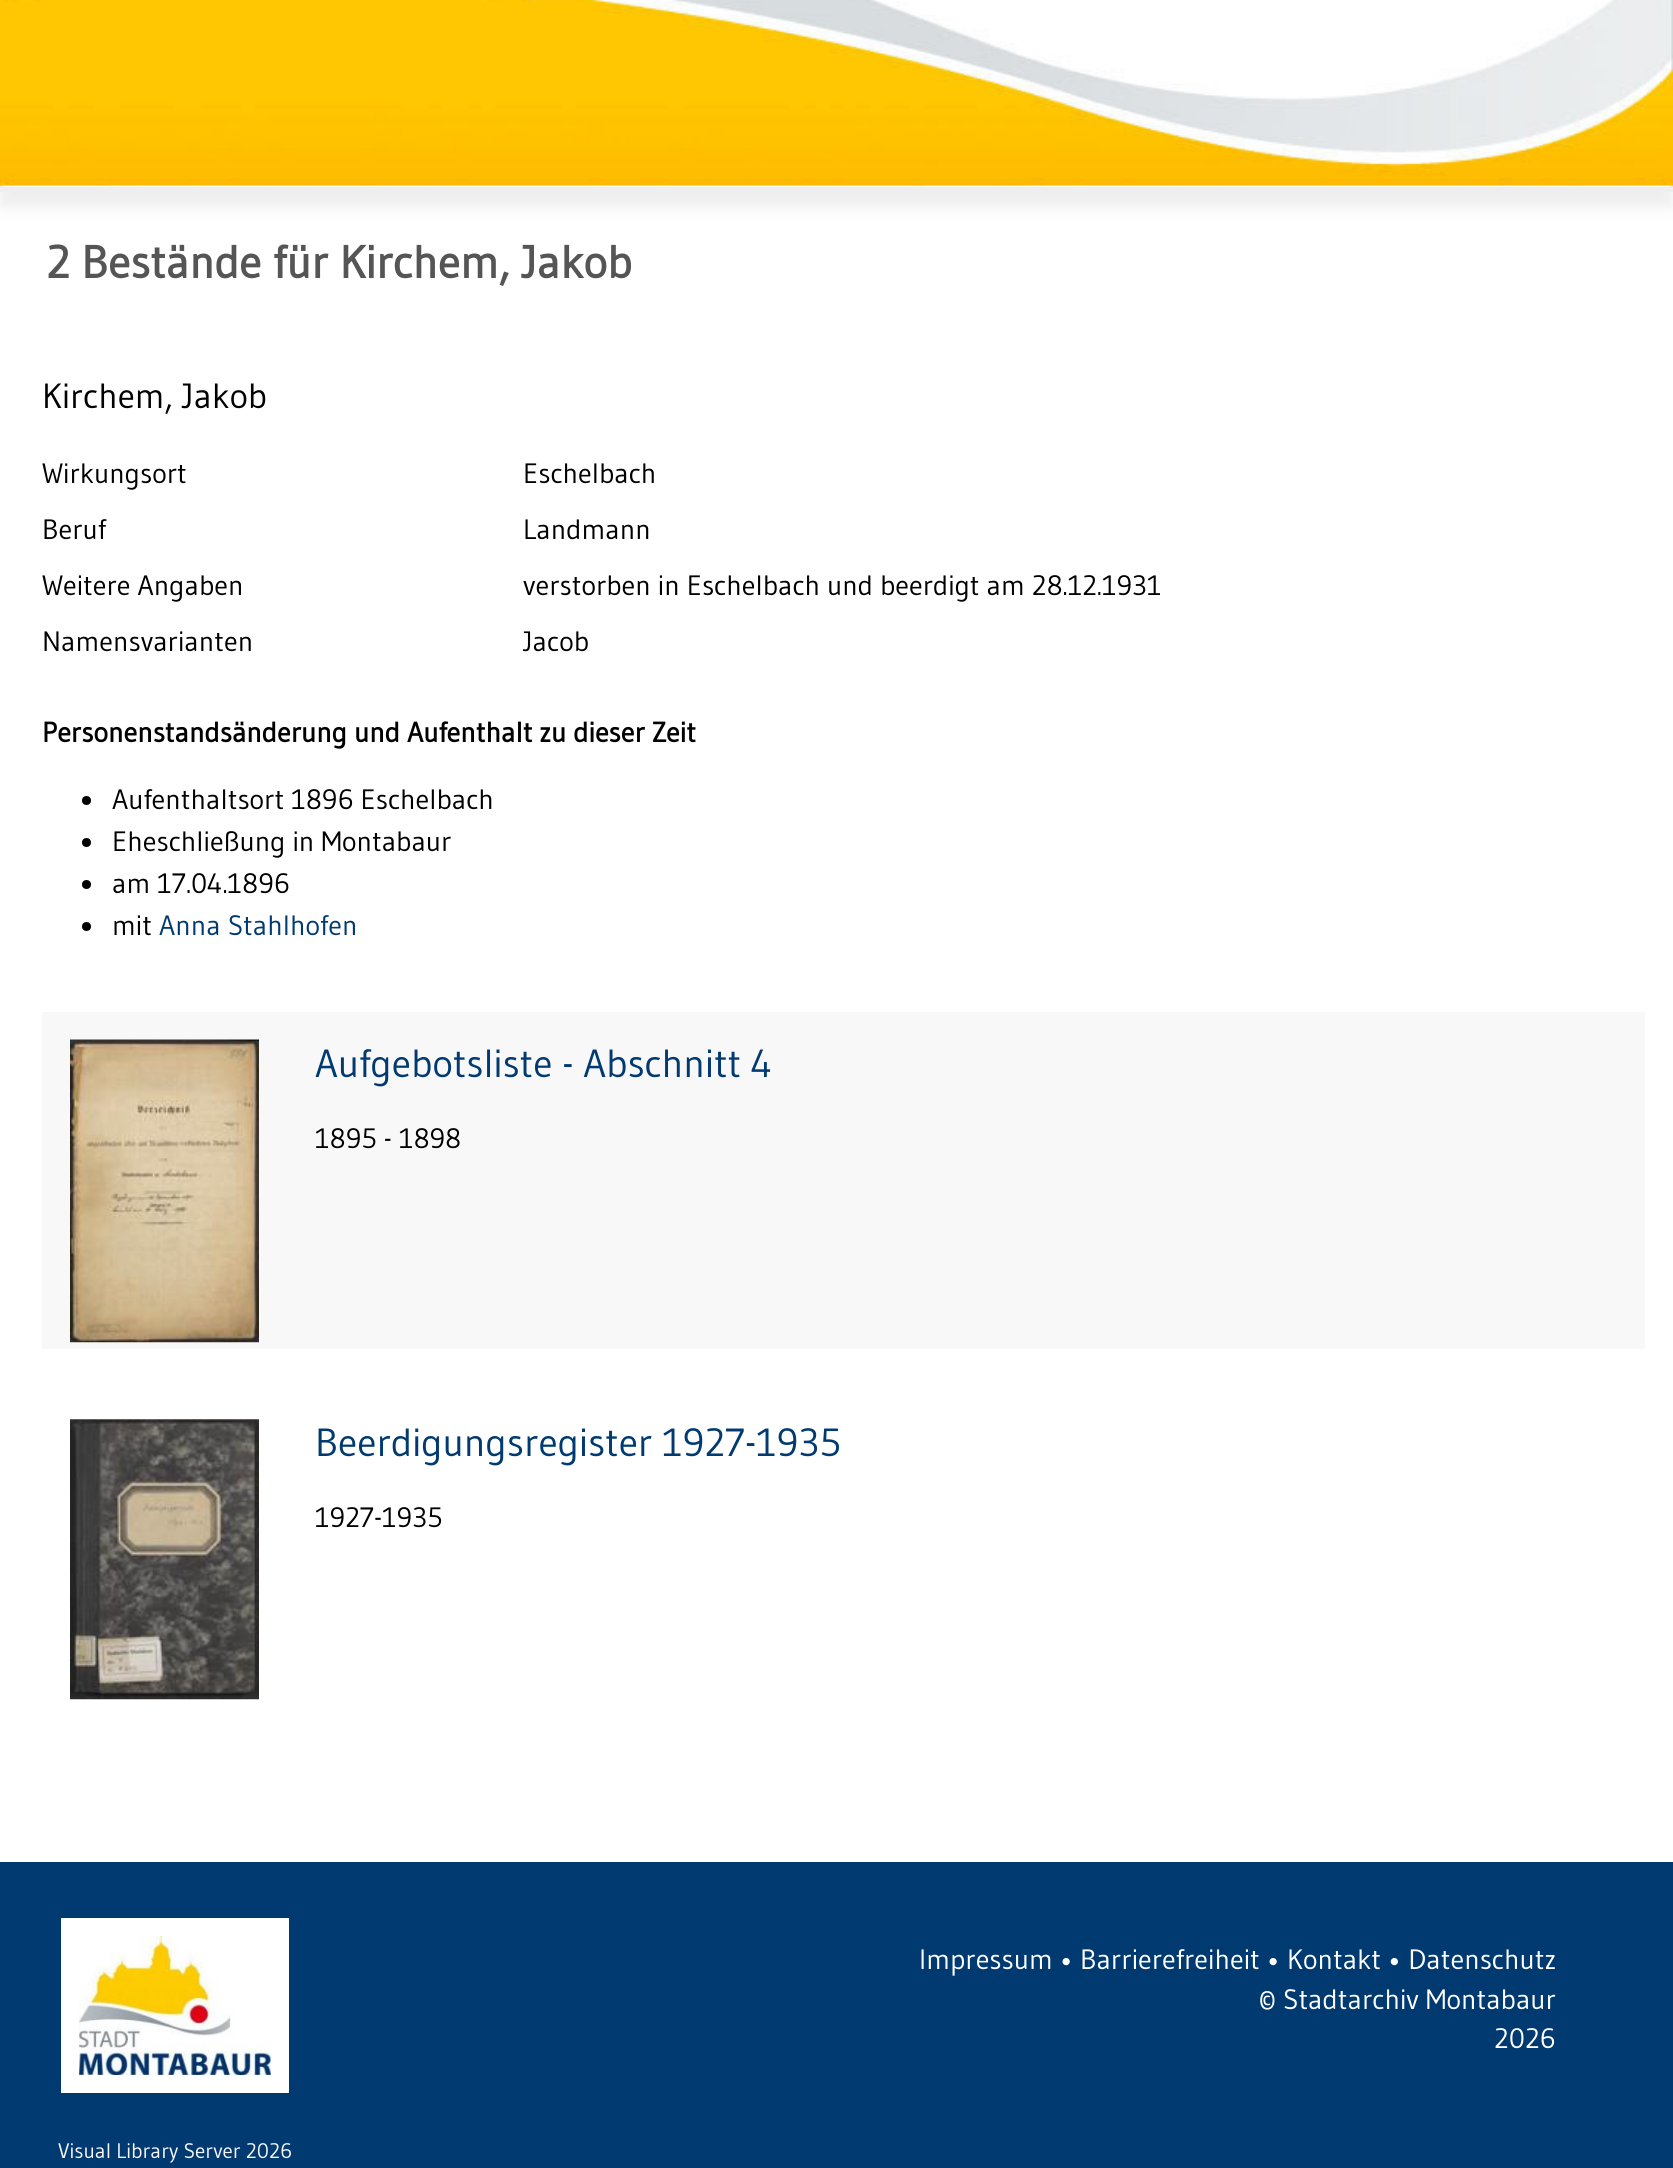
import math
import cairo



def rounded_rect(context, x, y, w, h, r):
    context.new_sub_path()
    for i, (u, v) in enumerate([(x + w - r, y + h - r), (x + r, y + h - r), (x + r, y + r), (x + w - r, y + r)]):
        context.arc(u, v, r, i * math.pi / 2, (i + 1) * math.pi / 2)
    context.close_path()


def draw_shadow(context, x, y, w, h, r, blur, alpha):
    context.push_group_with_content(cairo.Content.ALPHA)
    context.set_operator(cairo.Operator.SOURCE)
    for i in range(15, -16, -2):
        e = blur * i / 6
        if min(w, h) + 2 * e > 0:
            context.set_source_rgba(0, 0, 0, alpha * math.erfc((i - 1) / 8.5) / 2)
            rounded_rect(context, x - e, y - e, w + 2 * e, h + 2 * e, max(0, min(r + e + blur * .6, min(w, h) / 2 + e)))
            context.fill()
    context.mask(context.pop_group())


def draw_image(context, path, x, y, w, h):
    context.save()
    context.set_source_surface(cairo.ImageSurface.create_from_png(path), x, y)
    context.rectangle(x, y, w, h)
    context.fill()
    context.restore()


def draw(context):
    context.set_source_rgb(1, 1, 1)
    context.paint()
    context.set_source_rgb(238 / 255, 238 / 255, 238 / 255)
    draw_shadow(context, 0, 14, 1673, 193, 0, 7, 1)
    draw_image(context, "images/1.png", 0, 0, 1673, 187)
    context.set_source_rgb(238 / 255, 238 / 255, 238 / 255)
    context.rectangle(0, 187, 1673, 5)
    context.fill()
    context.set_source_rgb(0, 0, 0)
    context.arc(86.5, 800.5, 4.5, 0, 2 * math.pi)
    context.fill()
    context.arc(86.5, 842.5, 4.5, 0, 2 * math.pi)
    context.fill()
    context.arc(86.5, 884.5, 4.5, 0, 2 * math.pi)
    context.fill()
    context.arc(86.5, 926.5, 4.5, 0, 2 * math.pi)
    context.fill()
    context.set_source_rgb(248 / 255, 248 / 255, 248 / 255)
    context.rectangle(42, 1012, 1603, 337)
    context.fill()
    draw_image(context, "images/2.png", 70, 1039, 189, 304)
    draw_image(context, "images/3.png", 70, 1419, 189, 281)
    context.set_source_rgb(0, 58 / 255, 113 / 255)
    context.rectangle(0, 1862, 1673, 306)
    context.fill()
    draw_image(context, "images/4.png", 79, 1936, 192, 139)
    context.rectangle(70, 1927, 210, 157)
    context.set_source_rgb(1, 1, 1)
    context.set_line_width(18)
    context.stroke()
    context.select_font_face("Gudea", cairo.FontSlant.NORMAL, cairo.FontWeight.BOLD)
    context.set_font_size(45.5)
    context.set_source_rgb(85 / 255, 85 / 255, 85 / 255)
    context.move_to(46, 278)
    context.show_text("2 Bestände für Kirchem, Jakob")
    context.select_font_face("Gudea")
    context.set_font_size(35)
    context.set_source_rgb(0, 0, 0)
    context.move_to(42, 408)
    context.show_text("Kirchem, Jakob")
    context.set_font_size(28)
    context.move_to(42, 483)
    context.show_text("Wirkungsort")
    context.move_to(523, 483)
    context.show_text("Eschelbach")
    context.move_to(42, 539)
    context.show_text("Beruf")
    context.move_to(523, 539)
    context.show_text("Landmann")
    context.move_to(42, 595)
    context.show_text("Weitere Angaben")
    context.move_to(523, 595)
    context.show_text("verstorben in Eschelbach und beerdigt am 28.12.1931")
    context.move_to(42, 651)
    context.show_text("Namensvarianten")
    context.move_to(523, 651)
    context.show_text("Jacob")
    context.select_font_face("Gudea", cairo.FontSlant.NORMAL, cairo.FontWeight.BOLD)
    context.move_to(42, 742)
    context.show_text("Personenstandsänderung und Aufenthalt zu dieser Zeit")
    context.select_font_face("Gudea")
    context.move_to(112, 809)
    context.show_text("Aufenthaltsort 1896 Eschelbach")
    context.move_to(112, 851)
    context.show_text("Eheschließung in Montabaur")
    context.move_to(112, 893)
    context.show_text("am 17.04.1896")
    context.move_to(112, 935)
    context.show_text("mit")
    context.set_source_rgb(0, 58 / 255, 113 / 255)
    context.move_to(159, 935)
    context.show_text("Anna Stahlhofen")
    context.set_font_size(39.25)
    context.move_to(315, 1077)
    context.show_text("Aufgebotsliste - Abschnitt 4")
    context.set_font_size(28)
    context.set_source_rgb(0, 0, 0)
    context.move_to(315, 1148)
    context.show_text("1895 - 1898")
    context.set_font_size(39.25)
    context.set_source_rgb(0, 58 / 255, 113 / 255)
    context.move_to(315, 1456)
    context.show_text("Beerdigungsregister 1927-1935")
    context.set_font_size(28)
    context.set_source_rgb(0, 0, 0)
    context.move_to(315, 1527)
    context.show_text("1927-1935")
    context.set_source_rgb(1, 1, 1)
    context.move_to(919, 1969)
    context.show_text("Impressum • Barrierefreiheit • Kontakt • Datenschutz")
    context.set_font_size(34)
    context.move_to(1258, 2009)
    context.show_text("©")
    context.set_font_size(28)
    context.move_to(1283, 2009)
    context.show_text("Stadtarchiv Montabaur")
    context.move_to(1494, 2048)
    context.show_text("2026")
    context.set_font_size(21)
    context.set_source_rgb(246 / 255, 246 / 255, 246 / 255)
    context.move_to(58, 2158)
    context.show_text("Visual Library Server 2026")


surface = cairo.ImageSurface(cairo.Format.RGB24, 1673, 2168)
context = cairo.Context(surface)
options = cairo.FontOptions()
options.set_hint_metrics(cairo.HintMetrics.OFF)
options.set_hint_style(cairo.HintStyle.NONE)
context.set_font_options(options)
context.set_miter_limit(4)
draw(context)
surface.write_to_png("out.png")
